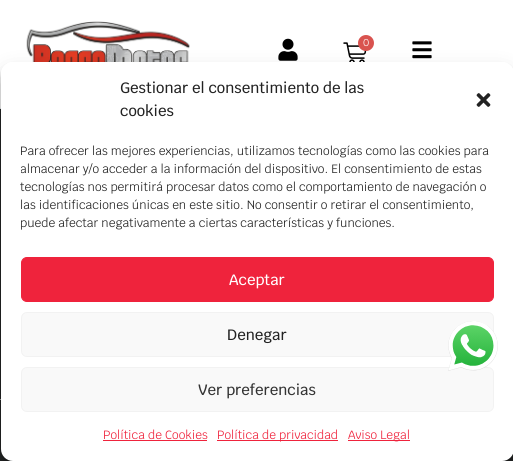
import math
import cairo



def rounded_rect(context, x, y, w, h, r):
    context.new_sub_path()
    for i, (u, v) in enumerate([(x + w - r, y + h - r), (x + r, y + h - r), (x + r, y + r), (x + w - r, y + r)]):
        context.arc(u, v, r, i * math.pi / 2, (i + 1) * math.pi / 2)
    context.close_path()


def draw_shadow(context, x, y, w, h, r, blur, alpha):
    context.push_group_with_content(cairo.Content.ALPHA)
    context.set_operator(cairo.Operator.SOURCE)
    for i in range(15, -16, -2):
        e = blur * i / 6
        if min(w, h) + 2 * e > 0:
            context.set_source_rgba(0, 0, 0, alpha * math.erfc((i - 1) / 8.5) / 2)
            rounded_rect(context, x - e, y - e, w + 2 * e, h + 2 * e, max(0, min(r + e + blur * .6, min(w, h) / 2 + e)))
            context.fill()
    context.mask(context.pop_group())


def draw_image(context, path, x, y, w, h):
    context.save()
    context.set_source_surface(cairo.ImageSurface.create_from_png(path), x, y)
    context.rectangle(x, y, w, h)
    context.fill()
    context.restore()


def draw(context):
    context.set_source_rgb(35 / 255, 37 / 255, 37 / 255)
    context.paint()
    context.set_source_rgb(1, 1, 1)
    context.rectangle(0, 0, 513, 108)
    context.fill()
    context.set_source_rgb(233 / 255, 236 / 255, 239 / 255)
    context.rectangle(0, 108, 1, 1)
    context.fill()
    draw_image(context, "images/1.png", 26, 21, 164, 41)
    draw_image(context, "images/2.png", 278, 38, 20, 23)
    draw_image(context, "images/3.png", 343, 42, 24, 20)
    context.set_source_rgb(217 / 255, 83 / 255, 79 / 255)
    context.arc(366, 43, 8, 0, 2 * math.pi)
    context.fill()
    draw_image(context, "images/4.png", 412, 41, 20, 18)
    context.set_source_rgb(165 / 255, 165 / 255, 165 / 255)
    context.rectangle(0, 399, 1, 1)
    context.fill()
    context.save()
    context.set_fill_rule(cairo.FillRule.EVEN_ODD)
    context.new_path()
    context.move_to(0, 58)
    context.line_to(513, 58)
    context.line_to(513, 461)
    context.line_to(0, 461)
    context.close_path()
    context.move_to(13, 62)
    context.line_to(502, 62)
    context.curve_to(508.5, 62, 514, 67.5, 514, 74)
    context.line_to(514, 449)
    context.curve_to(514, 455.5, 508.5, 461, 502, 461)
    context.line_to(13, 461)
    context.curve_to(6.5, 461, 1, 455.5, 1, 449)
    context.line_to(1, 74)
    context.curve_to(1, 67.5, 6.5, 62, 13, 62)
    context.close_path()
    context.clip()
    context.set_source_rgb(0, 0, 0)
    draw_shadow(context, 1, 68, 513, 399, 12, 3, 0.23)
    context.restore()
    context.save()
    context.set_fill_rule(cairo.FillRule.EVEN_ODD)
    context.new_path()
    context.move_to(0, 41)
    context.line_to(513, 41)
    context.line_to(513, 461)
    context.line_to(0, 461)
    context.close_path()
    context.move_to(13, 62)
    context.line_to(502, 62)
    context.curve_to(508.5, 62, 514, 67.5, 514, 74)
    context.line_to(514, 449)
    context.curve_to(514, 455.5, 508.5, 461, 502, 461)
    context.line_to(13, 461)
    context.curve_to(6.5, 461, 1, 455.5, 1, 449)
    context.line_to(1, 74)
    context.curve_to(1, 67.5, 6.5, 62, 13, 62)
    context.close_path()
    context.clip()
    context.set_source_rgb(0, 0, 0)
    draw_shadow(context, 1, 72, 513, 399, 12, 10, 0.19)
    context.restore()
    context.set_source_rgb(1, 1, 1)
    rounded_rect(context, 1, 62, 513, 399, 12)
    context.fill()
    draw_image(context, "images/5.png", 476, 93, 15, 14)
    context.set_source_rgb(239 / 255, 35 / 255, 60 / 255)
    rounded_rect(context, 21.5, 257.5, 472, 44, 5.5)
    context.fill_preserve()
    context.set_line_width(1)
    context.stroke()
    context.set_source_rgb(249 / 255, 249 / 255, 249 / 255)
    rounded_rect(context, 21.5, 312.5, 472, 44, 5.5)
    context.fill_preserve()
    context.set_source_rgb(242 / 255, 242 / 255, 242 / 255)
    context.stroke()
    context.set_source_rgb(249 / 255, 249 / 255, 249 / 255)
    rounded_rect(context, 21.5, 367.5, 472, 44, 5.5)
    context.fill_preserve()
    context.set_source_rgb(242 / 255, 242 / 255, 242 / 255)
    context.stroke()
    context.set_source_rgb(239 / 255, 35 / 255, 60 / 255)
    context.rectangle(103, 440, 104, 1)
    context.fill()
    context.rectangle(217, 440, 121, 1)
    context.fill()
    context.rectangle(348, 440, 62, 1)
    context.fill()
    draw_image(context, "images/6.png", 448, 321, 50, 50)
    context.select_font_face("Krub")
    context.set_font_size(10)
    context.set_source_rgb(1, 1, 1)
    context.move_to(363, 46)
    context.show_text("0")
    context.select_font_face("Krub Medium")
    context.set_font_size(15)
    context.set_source_rgb(34 / 255, 34 / 255, 34 / 255)
    context.move_to(120, 93)
    context.show_text("Gestionar el consentimiento de las")
    context.move_to(120, 116)
    context.show_text("cookies")
    context.select_font_face("Krub")
    context.set_font_size(12)
    context.move_to(20, 155)
    context.show_text("Para ofrecer las mejores experiencias, utilizamos tecnologías como las cookies para")
    context.save()
    context.rectangle(21, 142, 473, 95)
    context.clip()
    context.move_to(20, 173)
    context.show_text("almacenar y/o acceder a la información del dispositivo. El consentimiento de estas")
    context.restore()
    context.move_to(20, 191)
    context.show_text("tecnologías nos permitirá procesar datos como el comportamiento de navegación o")
    context.move_to(20, 209)
    context.show_text("las identificaciones únicas en este sitio. No consentir o retirar el consentimiento,")
    context.move_to(20, 227)
    context.show_text("puede afectar negativamente a ciertas características y funciones.")
    context.select_font_face("Krub Medium")
    context.set_font_size(15)
    context.set_source_rgb(1, 1, 1)
    context.move_to(229, 285)
    context.show_text("Aceptar")
    context.set_source_rgb(34 / 255, 34 / 255, 34 / 255)
    context.move_to(227, 340)
    context.show_text("Denegar")
    context.set_source_rgb(51 / 255, 51 / 255, 51 / 255)
    context.move_to(198, 395)
    context.show_text("Ver preferencias")
    context.select_font_face("Krub")
    context.set_font_size(12)
    context.set_source_rgb(239 / 255, 35 / 255, 60 / 255)
    context.move_to(103, 439)
    context.show_text("Política de Cookies")
    context.move_to(217, 439)
    context.show_text("Política de privacidad")
    context.move_to(348, 439)
    context.show_text("Aviso Legal")


surface = cairo.ImageSurface(cairo.Format.RGB24, 513, 461)
context = cairo.Context(surface)
options = cairo.FontOptions()
options.set_hint_metrics(cairo.HintMetrics.OFF)
options.set_hint_style(cairo.HintStyle.NONE)
context.set_font_options(options)
context.set_miter_limit(4)
draw(context)
surface.write_to_png("out.png")
